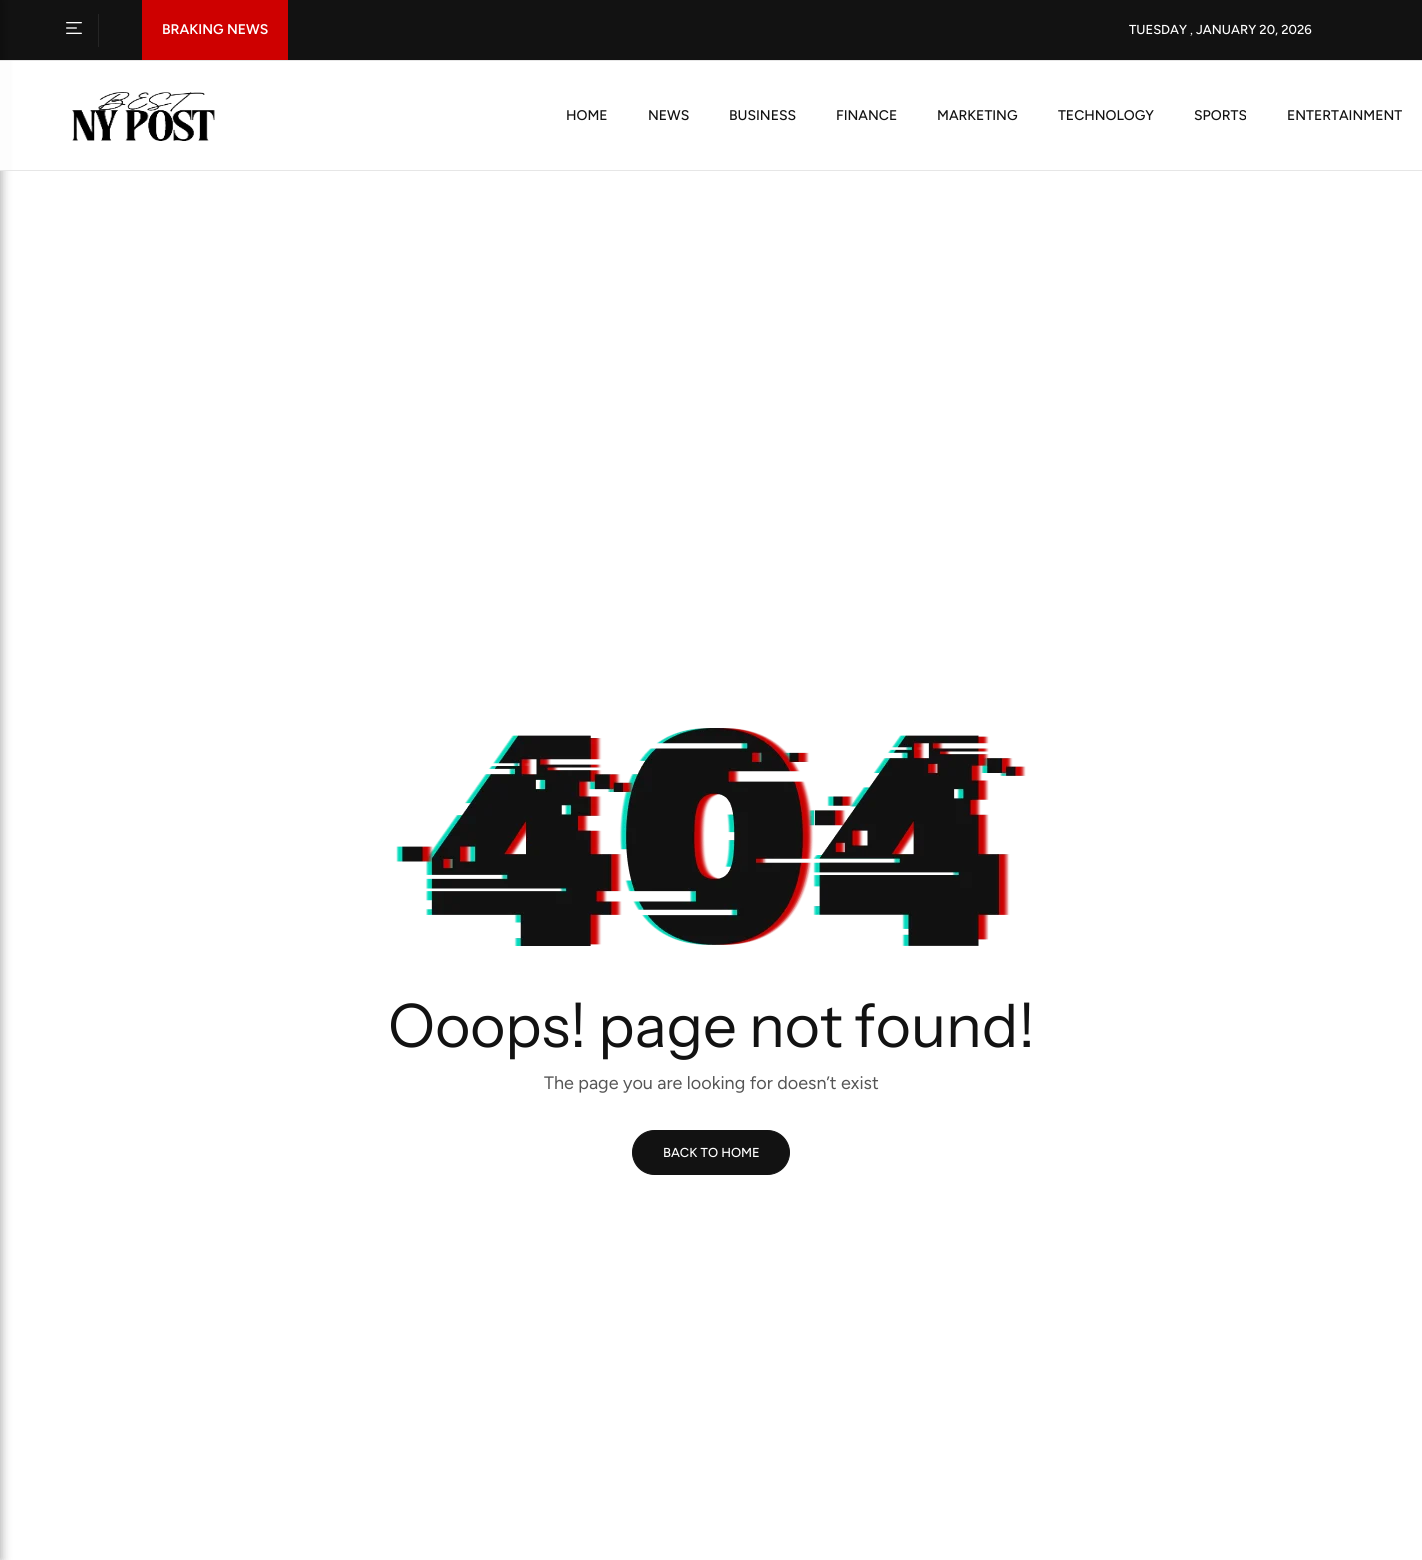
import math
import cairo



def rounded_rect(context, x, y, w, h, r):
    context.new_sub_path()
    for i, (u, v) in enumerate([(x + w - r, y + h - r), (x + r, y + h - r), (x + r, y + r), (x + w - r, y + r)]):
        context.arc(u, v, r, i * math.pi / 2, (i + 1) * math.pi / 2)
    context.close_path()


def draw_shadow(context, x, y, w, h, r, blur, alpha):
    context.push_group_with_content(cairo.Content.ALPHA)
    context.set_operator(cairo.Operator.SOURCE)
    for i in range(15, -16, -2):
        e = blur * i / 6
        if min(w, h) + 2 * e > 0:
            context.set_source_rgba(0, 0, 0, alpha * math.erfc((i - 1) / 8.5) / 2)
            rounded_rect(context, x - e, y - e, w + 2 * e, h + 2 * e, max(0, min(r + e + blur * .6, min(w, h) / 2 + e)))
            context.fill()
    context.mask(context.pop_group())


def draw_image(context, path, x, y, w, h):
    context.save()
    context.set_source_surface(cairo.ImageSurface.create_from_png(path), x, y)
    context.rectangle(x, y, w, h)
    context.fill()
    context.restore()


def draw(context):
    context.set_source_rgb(1, 1, 1)
    context.paint()
    context.set_source_rgb(18 / 255, 18 / 255, 18 / 255)
    context.rectangle(0, 0, 1422, 60)
    context.fill()
    context.set_source_rgb(0, 0, 0)
    draw_shadow(context, -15, 0, 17, 1560, 0, 5, 0.3)
    draw_image(context, "images/1.png", 66, 22, 16, 12)
    context.set_source_rgb(37 / 255, 37 / 255, 37 / 255)
    context.rectangle(98, 14, 1, 33)
    context.fill()
    context.set_source_rgb(206 / 255, 0, 0)
    context.rectangle(142, 0, 146, 60)
    context.fill()
    context.set_source_rgb(253 / 255, 253 / 255, 253 / 255)
    context.rectangle(0, 61, 10, 109)
    context.fill()
    context.set_source_rgb(230 / 255, 230 / 255, 230 / 255)
    context.rectangle(0, 60, 1422, 1)
    context.fill()
    context.rectangle(0, 170, 1422, 1)
    context.fill()
    draw_image(context, "images/2.png", 72, 92, 143, 49)
    draw_image(context, "images/3.png", 396, 728, 630, 218)
    context.set_source_rgb(18 / 255, 18 / 255, 18 / 255)
    rounded_rect(context, 632.5, 1130.5, 157, 44, 22)
    context.fill_preserve()
    context.set_line_width(1)
    context.stroke()
    context.select_font_face("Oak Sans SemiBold")
    context.set_font_size(14)
    context.set_source_rgb(1, 1, 1)
    context.move_to(162, 34)
    context.show_text("BRAKING NEWS")
    context.select_font_face("Oak Sans Medium")
    context.set_font_size(13)
    context.move_to(1129, 34)
    context.show_text("TUESDAY")
    context.select_font_face("Liberation Serif")
    context.set_font_size(12)
    context.move_to(1190, 34)
    context.show_text(",")
    context.select_font_face("Oak Sans Medium")
    context.set_font_size(13)
    context.move_to(1196, 34)
    context.show_text("JANUARY 20, 2026")
    context.set_font_size(14)
    context.set_source_rgb(18 / 255, 18 / 255, 18 / 255)
    context.move_to(566, 120)
    context.show_text("HOME")
    context.move_to(648, 120)
    context.show_text("NEWS")
    context.move_to(729, 120)
    context.show_text("BUSINESS")
    context.move_to(836, 120)
    context.show_text("FINANCE")
    context.move_to(937, 120)
    context.show_text("MARKETING")
    context.move_to(1058, 120)
    context.show_text("TECHNOLOGY")
    context.move_to(1194, 120)
    context.show_text("SPORTS")
    context.move_to(1287, 120)
    context.show_text("ENTERTAINMENT")
    context.select_font_face("Instrument Sans")
    context.set_font_size(60)
    context.move_to(388, 1047)
    context.show_text("Ooops! page not found!")
    context.select_font_face("Oak Sans")
    context.set_font_size(18)
    context.set_source_rgb(85 / 255, 85 / 255, 85 / 255)
    context.move_to(544, 1089)
    context.show_text("The page you are looking for doesn’t exist")
    context.select_font_face("Oak Sans Medium")
    context.set_font_size(13)
    context.set_source_rgb(1, 1, 1)
    context.move_to(663, 1157)
    context.show_text("BACK TO HOME")


surface = cairo.ImageSurface(cairo.Format.RGB24, 1422, 1560)
context = cairo.Context(surface)
options = cairo.FontOptions()
options.set_hint_metrics(cairo.HintMetrics.OFF)
options.set_hint_style(cairo.HintStyle.NONE)
context.set_font_options(options)
context.set_miter_limit(4)
draw(context)
surface.write_to_png("out.png")
